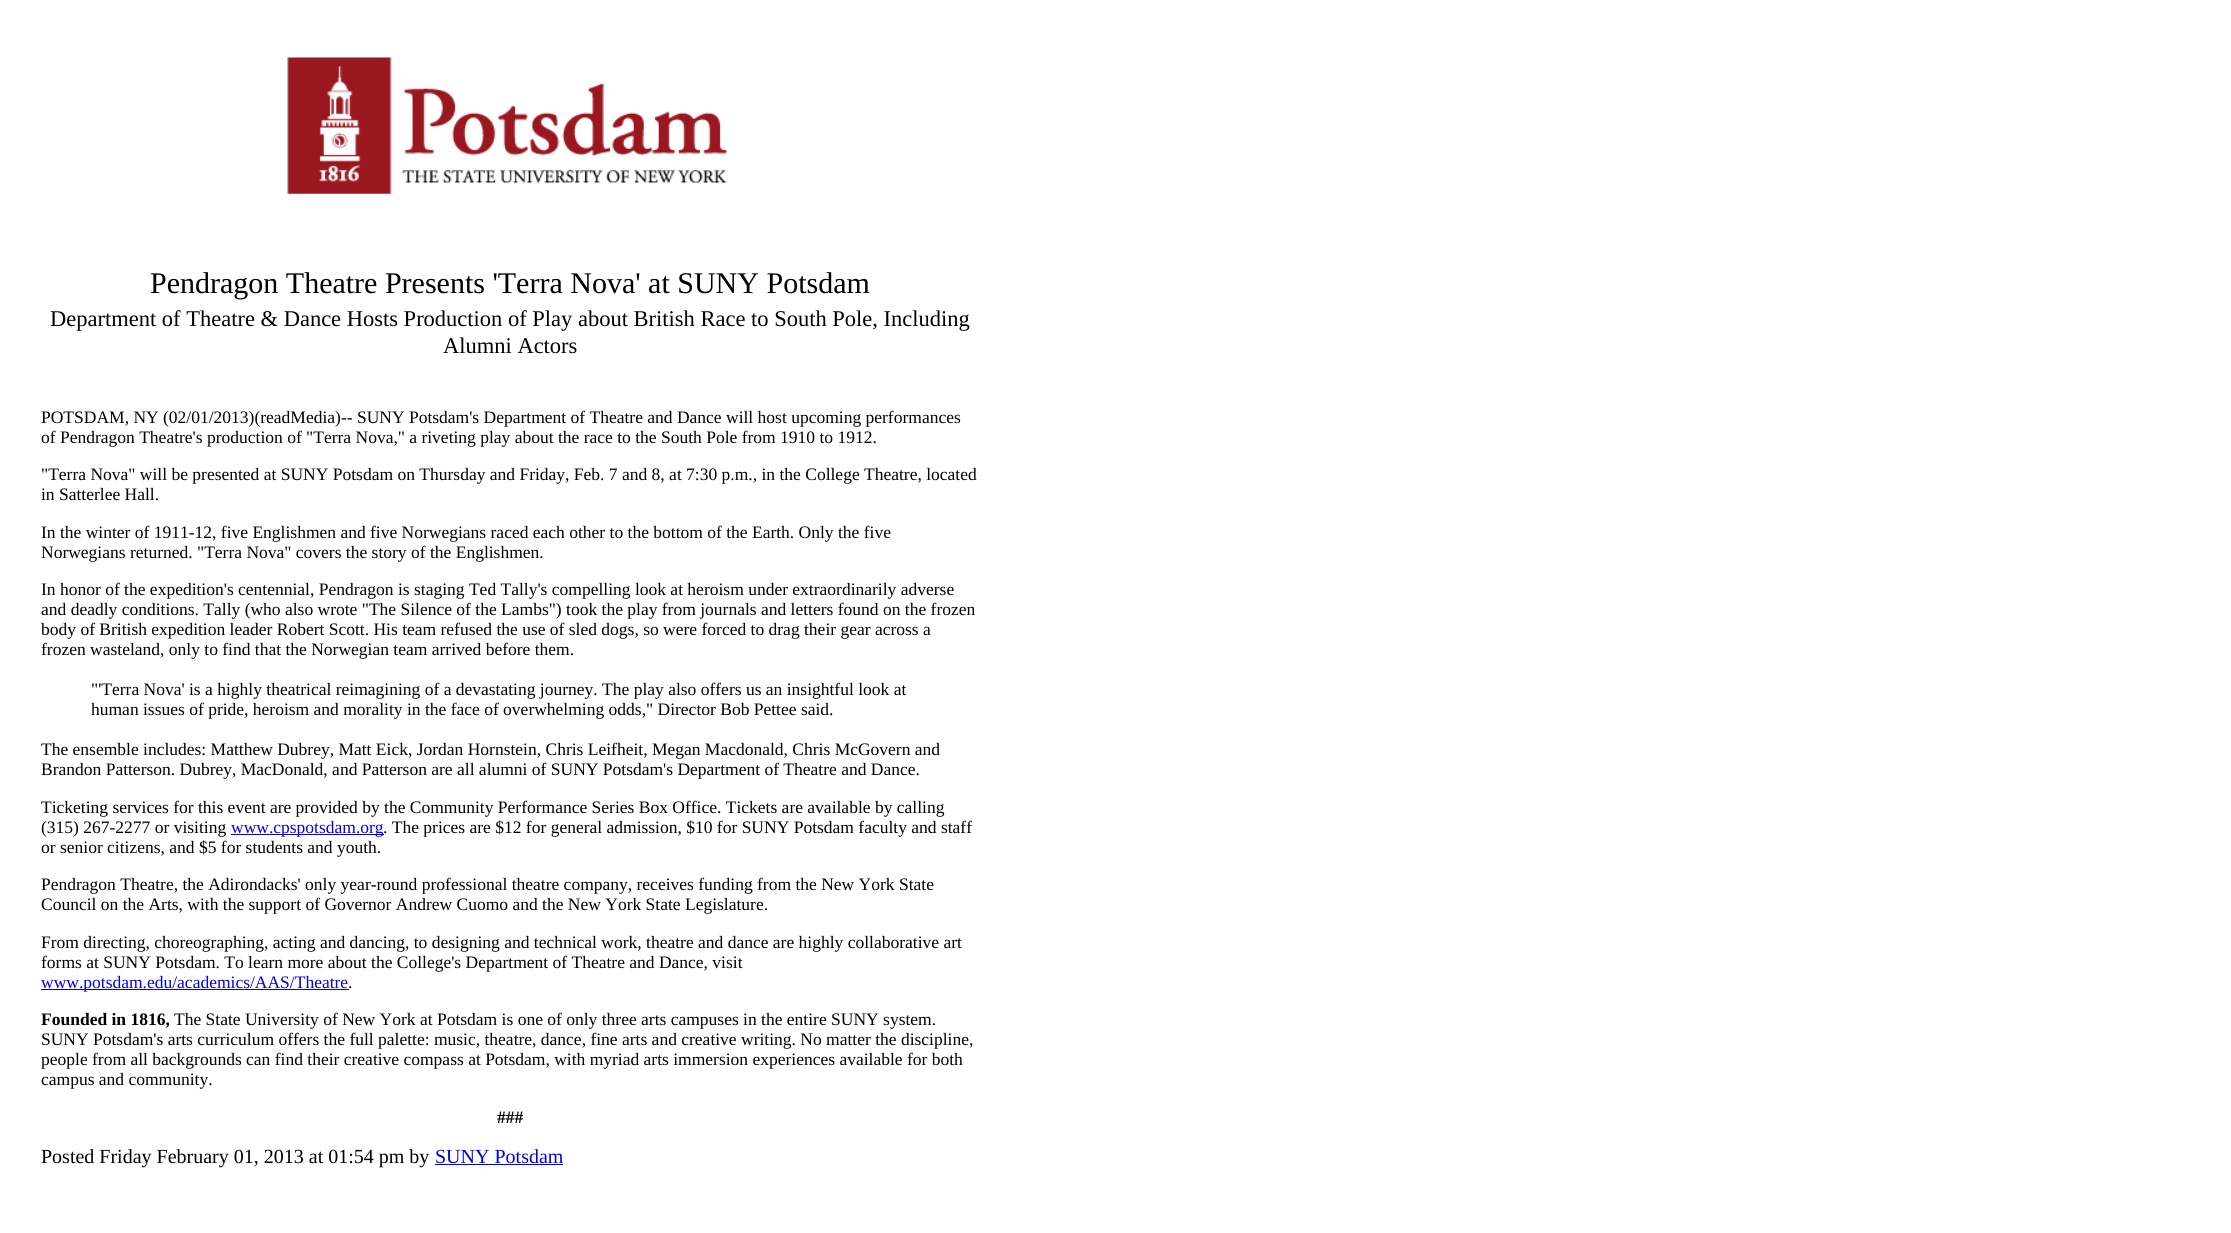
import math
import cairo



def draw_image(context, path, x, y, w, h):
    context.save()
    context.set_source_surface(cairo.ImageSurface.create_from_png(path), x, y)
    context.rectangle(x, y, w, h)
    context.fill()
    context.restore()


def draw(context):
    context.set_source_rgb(1, 1, 1)
    context.paint()
    draw_image(context, "images/1.png", 287, 57, 440, 137)
    context.set_source_rgb(0, 0, 238 / 255)
    context.rectangle(231, 834, 153, 1)
    context.fill()
    context.rectangle(41, 989, 308, 1)
    context.fill()
    context.rectangle(435, 1164, 128, 1)
    context.fill()
    context.select_font_face("Liberation Serif")
    context.set_font_size(30)
    context.set_source_rgb(0, 0, 0)
    context.move_to(150, 293)
    context.show_text("Pendragon Theatre Presents 'Terra Nova' at SUNY Potsdam")
    context.set_font_size(22.5)
    context.move_to(50, 326)
    context.show_text("Department of Theatre & Dance Hosts Production of Play about British Race to South Pole, Including")
    context.move_to(443, 353)
    context.show_text("Alumni Actors")
    context.set_font_size(17.5)
    context.move_to(41, 423)
    context.show_text("POTSDAM, NY (02/01/2013)(readMedia)-- SUNY Potsdam's Department of Theatre and Dance will host upcoming performances")
    context.move_to(41, 443)
    context.show_text("of Pendragon Theatre's production of \"Terra Nova,\" a riveting play about the race to the South Pole from 1910 to 1912.")
    context.move_to(41, 480)
    context.show_text("\"Terra Nova\" will be presented at SUNY Potsdam on Thursday and Friday, Feb. 7 and 8, at 7:30 p.m., in the College Theatre, located")
    context.move_to(41, 500)
    context.show_text("in Satterlee Hall.")
    context.move_to(41, 538)
    context.show_text("In the winter of 1911-12, five Englishmen and five Norwegians raced each other to the bottom of the Earth. Only the five")
    context.move_to(41, 558)
    context.show_text("Norwegians returned. \"Terra Nova\" covers the story of the Englishmen.")
    context.move_to(41, 595)
    context.show_text("In honor of the expedition's centennial, Pendragon is staging Ted Tally's compelling look at heroism under extraordinarily adverse")
    context.move_to(41, 615)
    context.show_text("and deadly conditions. Tally (who also wrote \"The Silence of the Lambs\") took the play from journals and letters found on the frozen")
    context.move_to(41, 635)
    context.show_text("body of British expedition leader Robert Scott. His team refused the use of sled dogs, so were forced to drag their gear across a")
    context.move_to(41, 655)
    context.show_text("frozen wasteland, only to find that the Norwegian team arrived before them.")
    context.move_to(91, 695)
    context.show_text("\"'Terra Nova' is a highly theatrical reimagining of a devastating journey. The play also offers us an insightful look at")
    context.move_to(91, 715)
    context.show_text("human issues of pride, heroism and morality in the face of overwhelming odds,\" Director Bob Pettee said.")
    context.move_to(41, 755)
    context.show_text("The ensemble includes: Matthew Dubrey, Matt Eick, Jordan Hornstein, Chris Leifheit, Megan Macdonald, Chris McGovern and")
    context.move_to(41, 775)
    context.show_text("Brandon Patterson. Dubrey, MacDonald, and Patterson are all alumni of SUNY Potsdam's Department of Theatre and Dance.")
    context.move_to(41, 813)
    context.show_text("Ticketing services for this event are provided by the Community Performance Series Box Office. Tickets are available by calling")
    context.move_to(41, 833)
    context.show_text("(315) 267-2277 or visiting")
    context.set_source_rgb(0, 0, 238 / 255)
    context.move_to(231, 833)
    context.show_text("www.cpspotsdam.org")
    context.set_source_rgb(0, 0, 0)
    context.move_to(383, 833)
    context.show_text(". The prices are $12 for general admission, $10 for SUNY Potsdam faculty and staff")
    context.move_to(41, 853)
    context.show_text("or senior citizens, and $5 for students and youth.")
    context.move_to(41, 890)
    context.show_text("Pendragon Theatre, the Adirondacks' only year-round professional theatre company, receives funding from the New York State")
    context.move_to(41, 910)
    context.show_text("Council on the Arts, with the support of Governor Andrew Cuomo and the New York State Legislature.")
    context.move_to(41, 948)
    context.show_text("From directing, choreographing, acting and dancing, to designing and technical work, theatre and dance are highly collaborative art")
    context.move_to(41, 968)
    context.show_text("forms at SUNY Potsdam. To learn more about the College's Department of Theatre and Dance, visit")
    context.set_source_rgb(0, 0, 238 / 255)
    context.move_to(41, 988)
    context.show_text("www.potsdam.edu/academics/AAS/Theatre")
    context.set_source_rgb(0, 0, 0)
    context.move_to(348, 988)
    context.show_text(".")
    context.select_font_face("Liberation Serif", cairo.FontSlant.NORMAL, cairo.FontWeight.BOLD)
    context.move_to(41, 1025)
    context.show_text("Founded in 1816,")
    context.select_font_face("Liberation Serif")
    context.move_to(174, 1025)
    context.show_text("The State University of New York at Potsdam is one of only three arts campuses in the entire SUNY system.")
    context.move_to(41, 1045)
    context.show_text("SUNY Potsdam's arts curriculum offers the full palette: music, theatre, dance, fine arts and creative writing. No matter the discipline,")
    context.move_to(41, 1065)
    context.show_text("people from all backgrounds can find their creative compass at Potsdam, with myriad arts immersion experiences available for both")
    context.move_to(41, 1085)
    context.show_text("campus and community.")
    context.select_font_face("Liberation Serif", cairo.FontSlant.NORMAL, cairo.FontWeight.BOLD)
    context.move_to(497, 1123)
    context.show_text("###")
    context.select_font_face("Liberation Serif")
    context.set_font_size(20)
    context.move_to(41, 1163)
    context.show_text("Posted Friday February 01, 2013 at 01:54 pm by")
    context.set_source_rgb(0, 0, 238 / 255)
    context.move_to(435, 1163)
    context.show_text("SUNY Potsdam")


surface = cairo.ImageSurface(cairo.Format.RGB24, 2231, 1233)
context = cairo.Context(surface)
options = cairo.FontOptions()
options.set_hint_metrics(cairo.HintMetrics.OFF)
options.set_hint_style(cairo.HintStyle.NONE)
context.set_font_options(options)
context.set_miter_limit(4)
draw(context)
surface.write_to_png("out.png")
